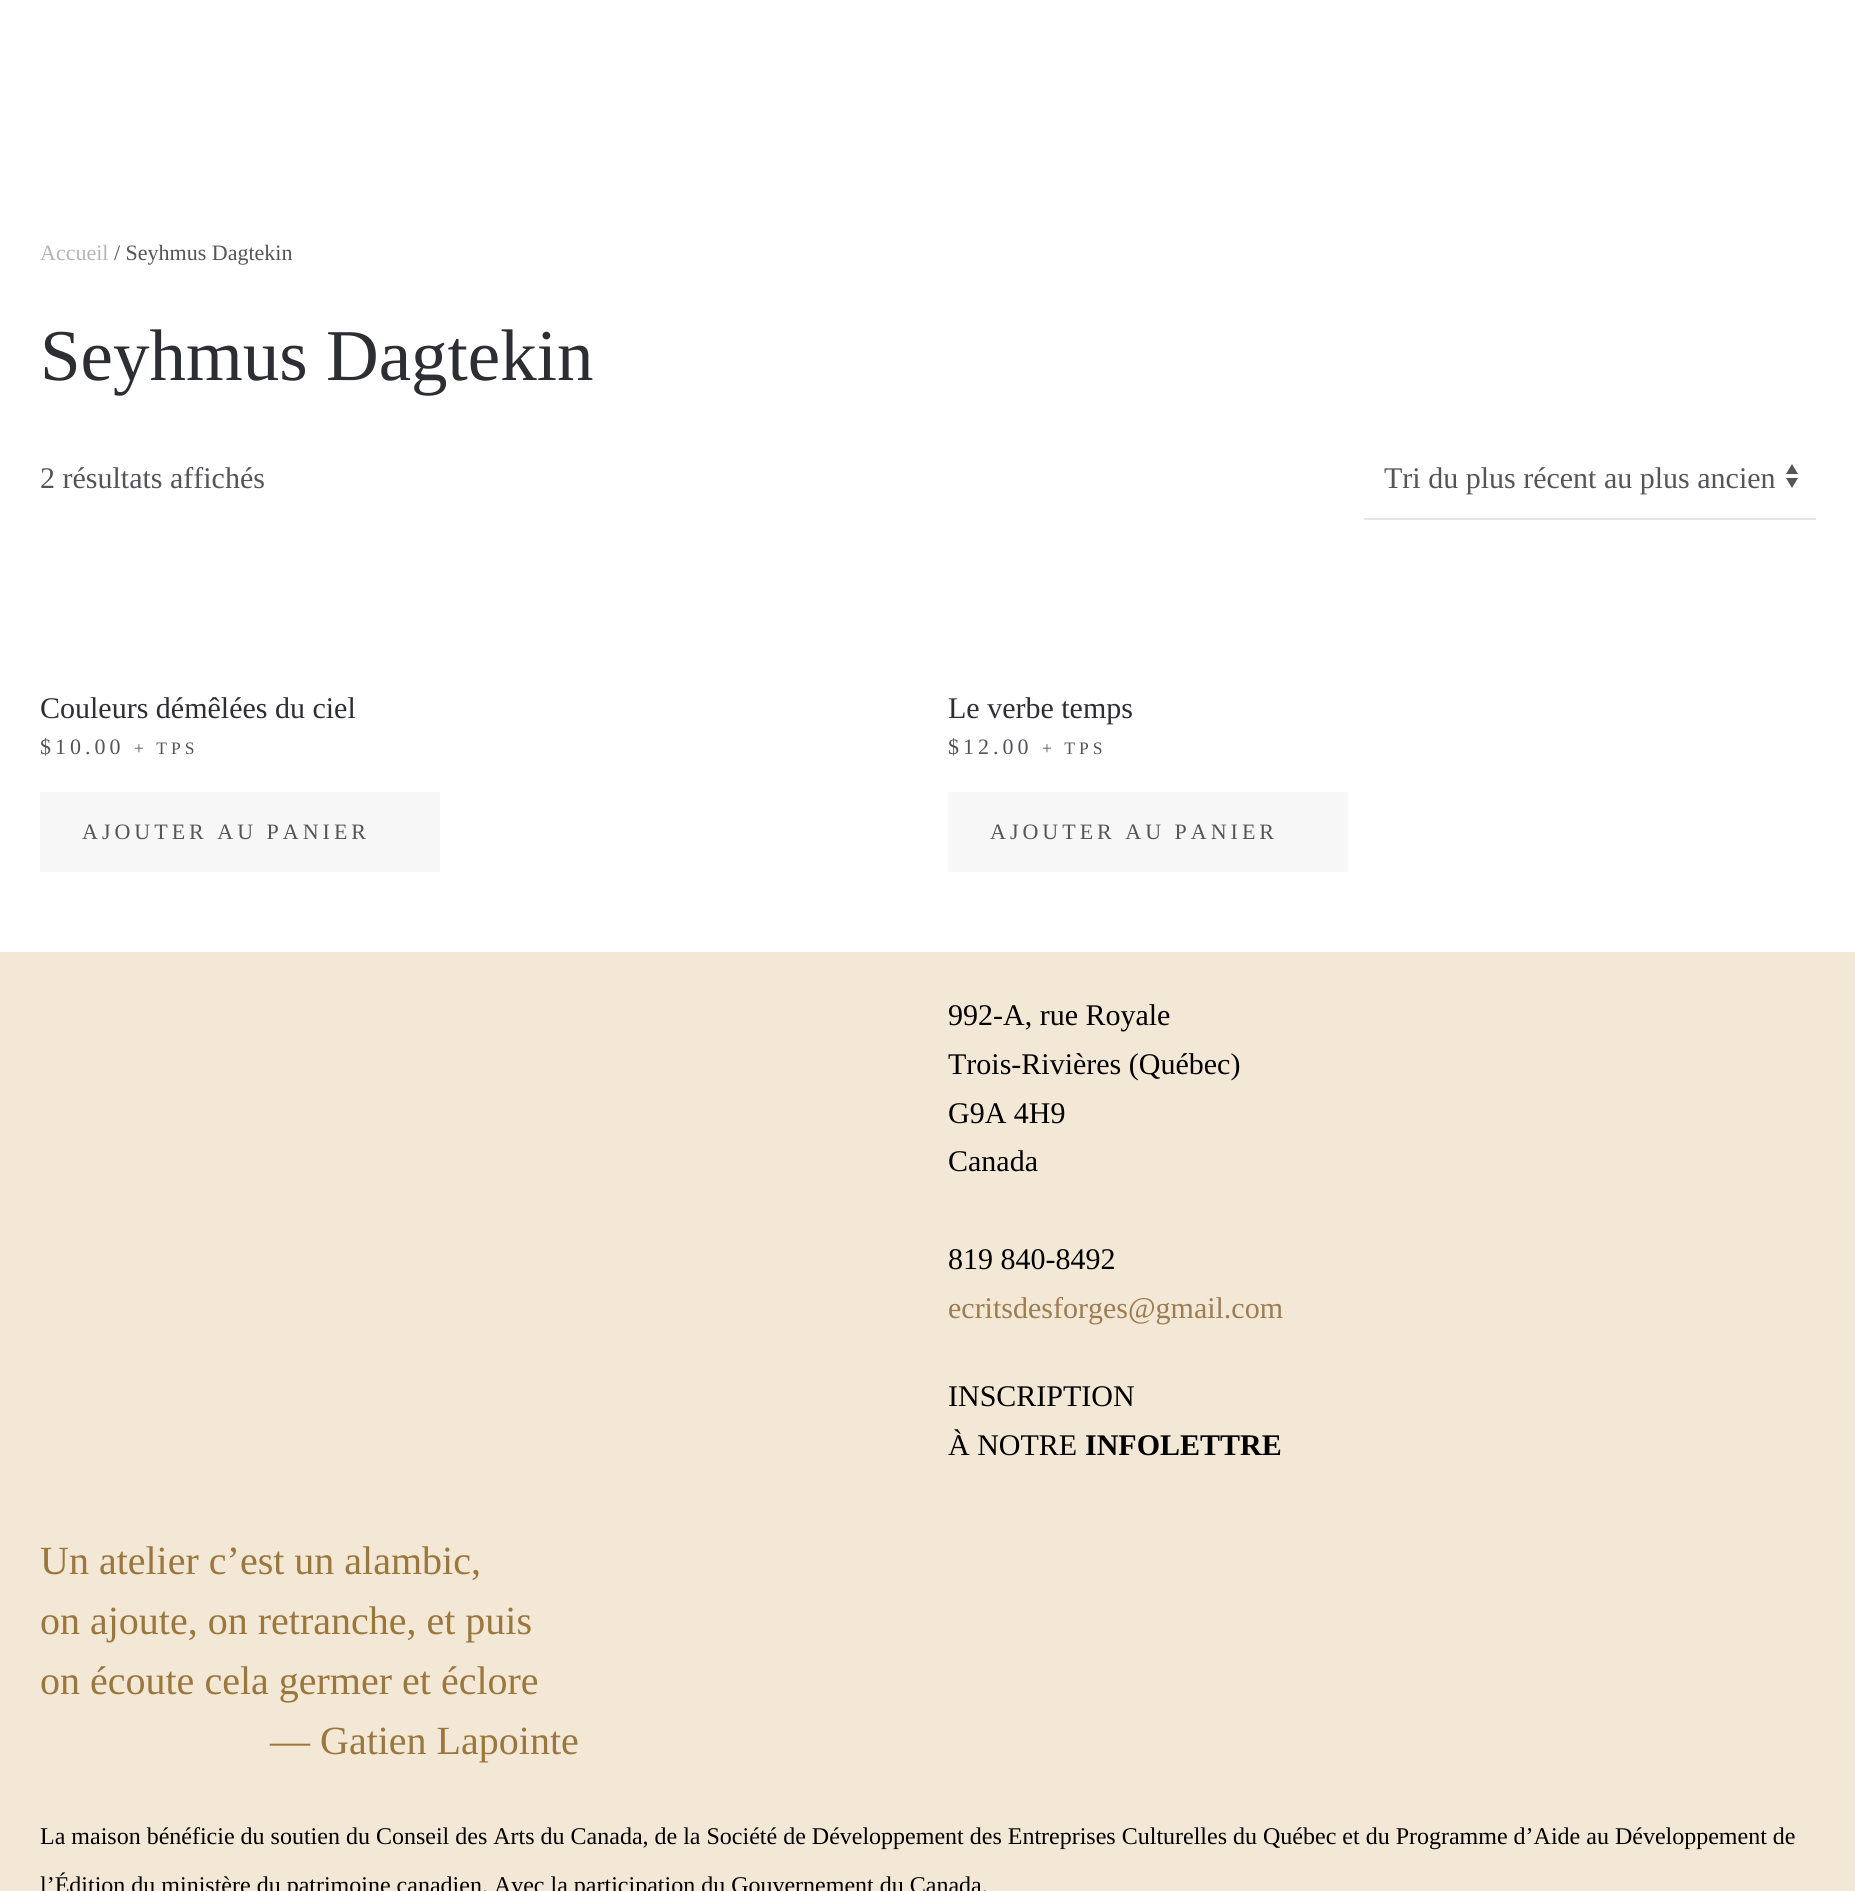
import math
import cairo



def draw_spaced(context, x, y, s, letter, word):
    context.move_to(x, y)
    for ch in s:
        context.show_text(ch)
        context.rel_move_to(letter + word * (ch == ' '), 0)


def draw(context):
    context.set_source_rgb(1, 1, 1)
    context.paint()
    context.set_source_rgb(84 / 255, 85 / 255, 91 / 255)
    context.new_path()
    context.move_to(1792, 464)
    context.line_to(1786, 474)
    context.line_to(1798, 474)
    context.close_path()
    context.move_to(1792, 488)
    context.line_to(1786, 478)
    context.line_to(1798, 478)
    context.close_path()
    context.fill()
    context.set_source_rgb(229 / 255, 229 / 255, 231 / 255)
    context.rectangle(1364, 518, 452, 2)
    context.fill()
    context.set_source_rgb(247 / 255, 247 / 255, 247 / 255)
    context.rectangle(40, 792, 400, 80)
    context.fill()
    context.rectangle(948, 792, 400, 80)
    context.fill()
    context.set_source_rgb(243 / 255, 232 / 255, 214 / 255)
    context.rectangle(0, 952, 1855, 939)
    context.fill()
    context.select_font_face("Liberation Serif")
    context.set_font_size(22)
    context.set_source_rgb(180 / 255, 181 / 255, 186 / 255)
    context.move_to(40, 260)
    context.show_text("Accueil")
    context.set_source_rgb(84 / 255, 85 / 255, 91 / 255)
    context.move_to(114, 260)
    context.show_text("/ Seyhmus Dagtekin")
    context.set_font_size(73)
    context.set_source_rgb(45 / 255, 46 / 255, 51 / 255)
    context.move_to(40, 380)
    context.show_text("Seyhmus Dagtekin")
    context.set_font_size(30)
    context.set_source_rgb(84 / 255, 85 / 255, 91 / 255)
    context.move_to(40, 488)
    context.show_text("2 résultats affichés")
    context.move_to(1384, 488)
    context.show_text("Tri du plus récent au plus ancien")
    context.set_source_rgb(45 / 255, 46 / 255, 51 / 255)
    context.move_to(40, 718)
    context.show_text("Couleurs démêlées du ciel")
    context.set_font_size(22)
    context.set_source_rgb(84 / 255, 85 / 255, 91 / 255)
    draw_spaced(context, 40, 754, "$10.00", 4, 0)
    context.set_font_size(17.5)
    draw_spaced(context, 134, 754, "+ TPS", 4, 0)
    context.set_font_size(22)
    draw_spaced(context, 82, 839, "AJOUTER AU PANIER", 4, 0)
    context.set_font_size(30)
    context.set_source_rgb(45 / 255, 46 / 255, 51 / 255)
    context.move_to(948, 718)
    context.show_text("Le verbe temps")
    context.set_font_size(22)
    context.set_source_rgb(84 / 255, 85 / 255, 91 / 255)
    draw_spaced(context, 948, 754, "$12.00", 4, 0)
    context.set_font_size(17.5)
    draw_spaced(context, 1042, 754, "+ TPS", 4, 0)
    context.set_font_size(22)
    draw_spaced(context, 990, 839, "AJOUTER AU PANIER", 4, 0)
    context.set_font_size(30)
    context.set_source_rgb(0, 0, 0)
    context.move_to(948, 1025)
    context.show_text("992-A, rue Royale")
    context.move_to(948, 1074)
    context.show_text("Trois-Rivières (Québec)")
    context.move_to(948, 1123)
    context.show_text("G9A 4H9")
    context.move_to(948, 1171)
    context.show_text("Canada")
    context.move_to(948, 1269)
    context.show_text("819 840-8492")
    context.set_source_rgb(158 / 255, 124 / 255, 82 / 255)
    context.move_to(948, 1318)
    context.show_text("ecritsdesforges@gmail.com")
    context.set_source_rgb(0, 0, 0)
    context.move_to(948, 1406)
    context.show_text("INSCRIPTION")
    context.move_to(948, 1455)
    context.show_text("À NOTRE")
    context.select_font_face("Liberation Serif", cairo.FontSlant.NORMAL, cairo.FontWeight.BOLD)
    context.move_to(1085, 1455)
    context.show_text("INFOLETTRE")
    context.select_font_face("Liberation Serif")
    context.set_font_size(40)
    context.set_source_rgb(155 / 255, 119 / 255, 61 / 255)
    context.move_to(40, 1574)
    context.show_text("Un atelier c’est un alambic,")
    context.move_to(40, 1634)
    context.show_text("on ajoute, on retranche, et puis")
    context.move_to(40, 1694)
    context.show_text("on écoute cela germer et éclore")
    context.move_to(270, 1754)
    context.show_text("— Gatien Lapointe")
    context.set_font_size(24)
    context.set_source_rgb(0, 0, 0)
    context.move_to(40, 1844)
    context.show_text("La maison bénéficie du soutien du Conseil des Arts du Canada, de la Société de Développement des Entreprises Culturelles du Québec et du Programme d’Aide au Développement de")
    context.move_to(40, 1893)
    context.show_text("l’Édition du ministère du patrimoine canadien. Avec la participation du Gouvernement du Canada.")


surface = cairo.ImageSurface(cairo.Format.RGB24, 1855, 1891)
context = cairo.Context(surface)
options = cairo.FontOptions()
options.set_hint_metrics(cairo.HintMetrics.OFF)
options.set_hint_style(cairo.HintStyle.NONE)
context.set_font_options(options)
context.set_miter_limit(4)
draw(context)
surface.write_to_png("out.png")
